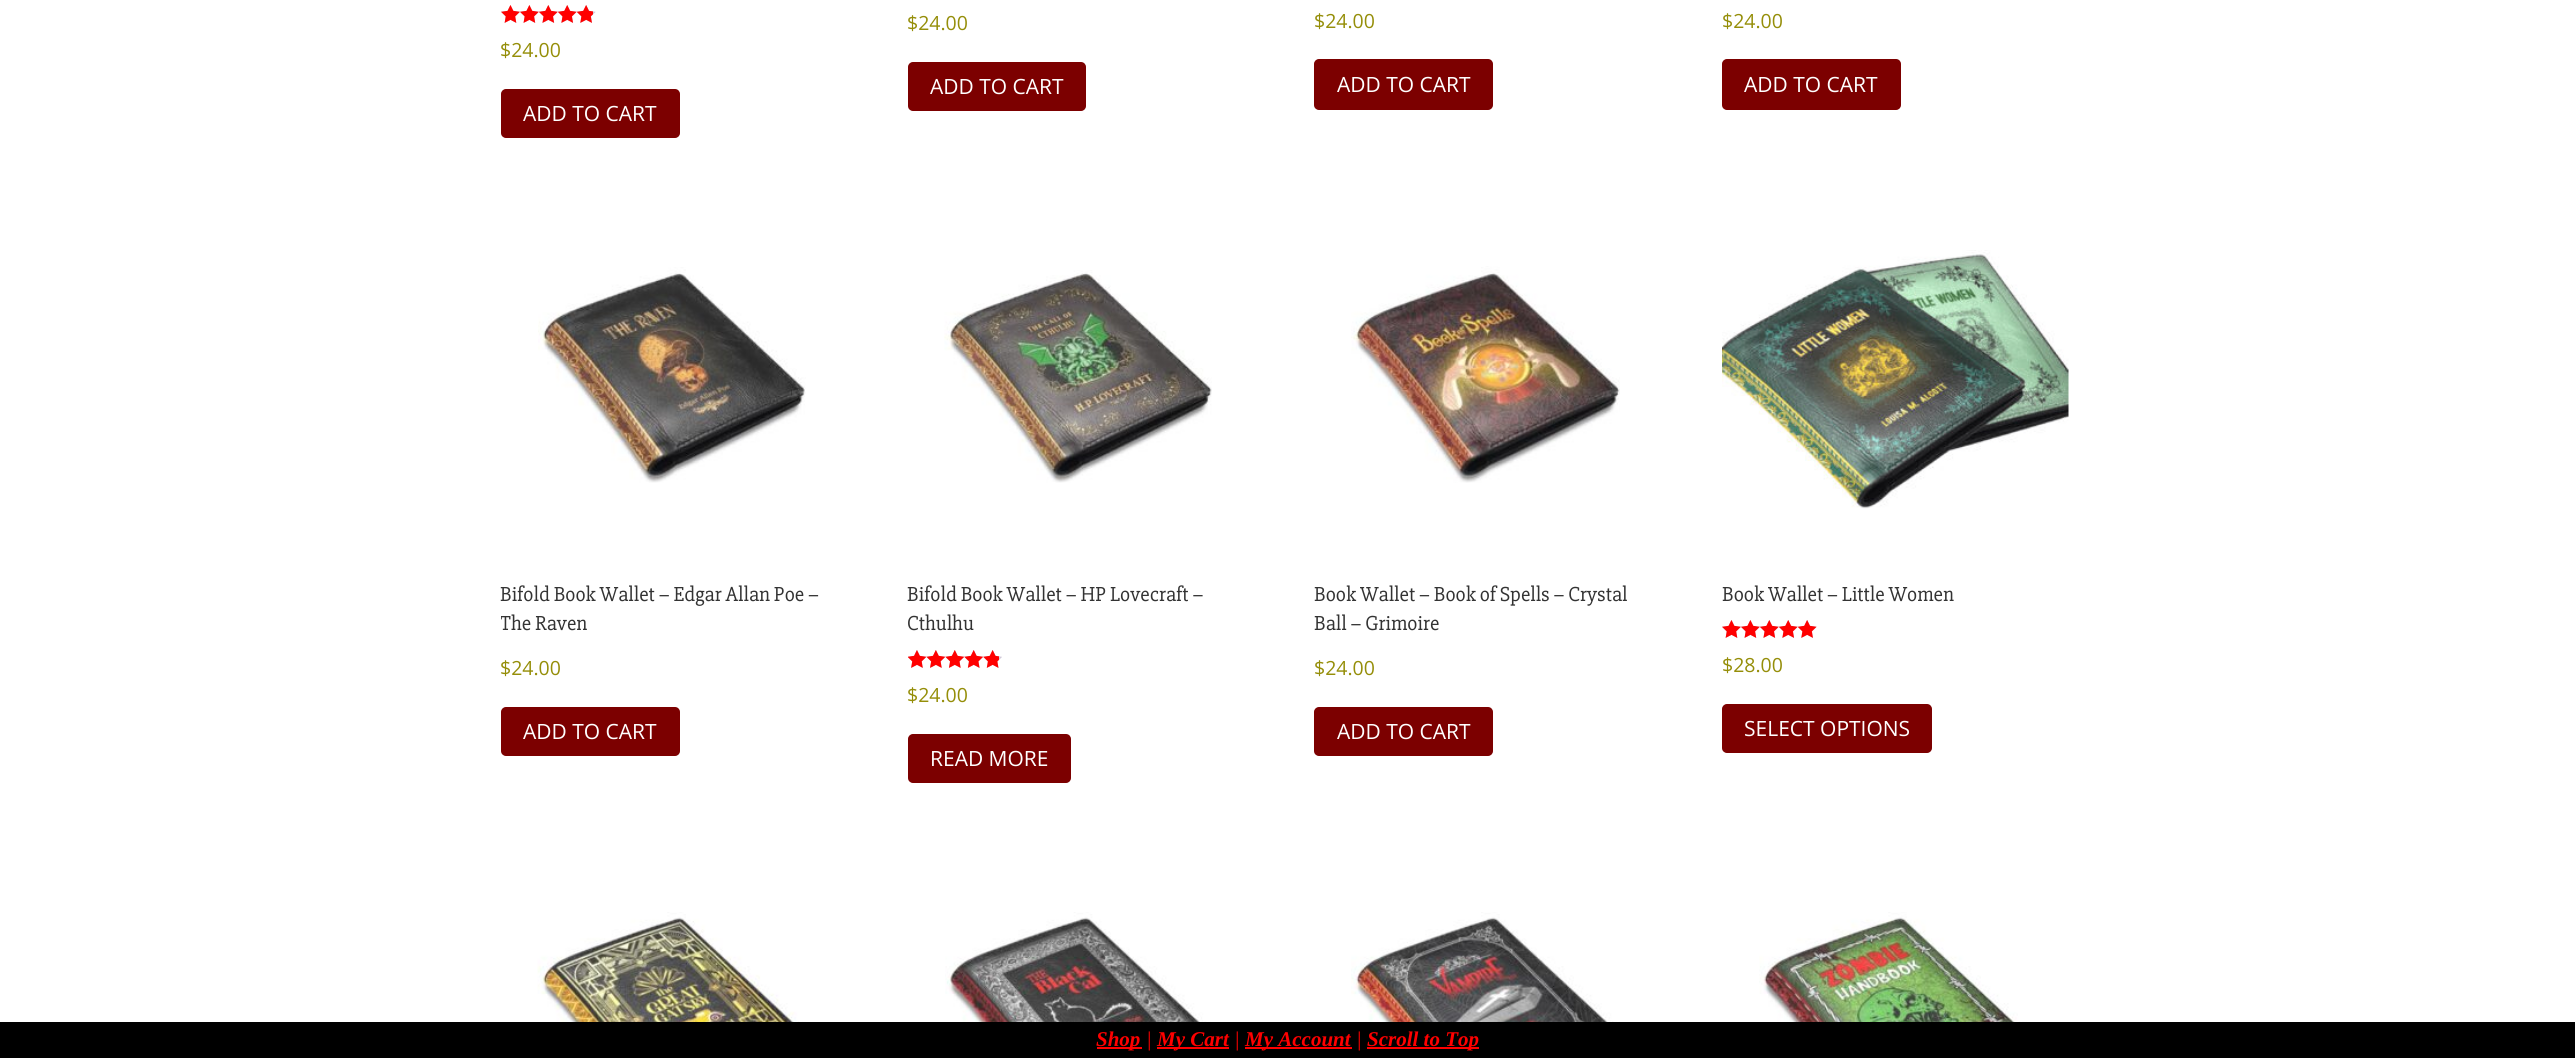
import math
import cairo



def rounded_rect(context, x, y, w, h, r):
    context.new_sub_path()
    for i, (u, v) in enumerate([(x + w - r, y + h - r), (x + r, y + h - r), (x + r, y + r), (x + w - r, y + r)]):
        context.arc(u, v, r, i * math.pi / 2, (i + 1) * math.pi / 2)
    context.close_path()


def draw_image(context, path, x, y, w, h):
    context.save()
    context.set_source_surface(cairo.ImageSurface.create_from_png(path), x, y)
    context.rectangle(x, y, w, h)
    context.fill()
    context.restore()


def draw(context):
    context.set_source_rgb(1, 1, 1)
    context.paint()
    draw_image(context, "images/1.png", 501, 5, 95, 18)
    draw_image(context, "images/2.png", 501, 5, 92, 18)
    context.set_source_rgb(124 / 255, 0, 0)
    rounded_rect(context, 502, 90, 177, 47, 4)
    context.fill_preserve()
    context.stroke()
    rounded_rect(context, 909, 63, 176, 47, 4)
    context.fill_preserve()
    context.stroke()
    rounded_rect(context, 1315, 60, 177, 49, 4)
    context.fill_preserve()
    context.stroke()
    rounded_rect(context, 1723, 60, 177, 49, 4)
    context.fill_preserve()
    context.stroke()
    draw_image(context, "images/3.png", 538, 267, 268, 216)
    rounded_rect(context, 502, 708, 177, 47, 4)
    context.fill_preserve()
    context.stroke()
    draw_image(context, "images/4.png", 944, 270, 268, 213)
    draw_image(context, "images/5.png", 908, 650, 94, 18)
    draw_image(context, "images/6.png", 908, 650, 91, 18)
    rounded_rect(context, 909, 735, 161, 47, 4)
    context.fill_preserve()
    context.stroke()
    draw_image(context, "images/7.png", 1351, 266, 269, 217)
    rounded_rect(context, 1315, 708, 177, 47, 4)
    context.fill_preserve()
    context.stroke()
    draw_image(context, "images/8.png", 1722, 250, 347, 259)
    draw_image(context, "images/1.png", 1722, 620, 95, 18)
    draw_image(context, "images/9.png", 1722, 620, 95, 18)
    rounded_rect(context, 1723, 705, 208, 47, 4)
    context.fill_preserve()
    context.stroke()
    draw_image(context, "images/10.png", 537, 912, 269, 110)
    draw_image(context, "images/11.png", 945, 912, 267, 110)
    draw_image(context, "images/12.png", 1351, 912, 269, 110)
    draw_image(context, "images/13.png", 1759, 912, 268, 110)
    context.set_source_rgb(0, 0, 0)
    context.rectangle(0, 1022, 2575, 36)
    context.fill()
    context.set_source_rgb(1, 0, 0)
    context.rectangle(1097, 1047, 45, 2)
    context.fill()
    context.rectangle(1157, 1047, 72, 2)
    context.fill()
    context.rectangle(1245, 1047, 107, 2)
    context.fill()
    context.rectangle(1367, 1047, 112, 2)
    context.fill()
    context.select_font_face("Open Sans")
    context.set_font_size(19.5)
    context.set_source_rgb(149 / 255, 142 / 255, 9 / 255)
    context.move_to(500, 57)
    context.show_text("$24.00")
    context.set_font_size(21)
    context.set_source_rgb(1, 1, 1)
    context.move_to(523, 121)
    context.show_text("ADD TO CART")
    context.set_font_size(19.5)
    context.set_source_rgb(149 / 255, 142 / 255, 9 / 255)
    context.move_to(907, 30)
    context.show_text("$24.00")
    context.set_font_size(21)
    context.set_source_rgb(1, 1, 1)
    context.move_to(930, 94)
    context.show_text("ADD TO CART")
    context.set_font_size(19.5)
    context.set_source_rgb(149 / 255, 142 / 255, 9 / 255)
    context.move_to(1314, 28)
    context.show_text("$24.00")
    context.set_font_size(21)
    context.set_source_rgb(1, 1, 1)
    context.move_to(1337, 92)
    context.show_text("ADD TO CART")
    context.set_font_size(19.5)
    context.set_source_rgb(149 / 255, 142 / 255, 9 / 255)
    context.move_to(1722, 28)
    context.show_text("$24.00")
    context.set_font_size(21)
    context.set_source_rgb(1, 1, 1)
    context.move_to(1744, 92)
    context.show_text("ADD TO CART")
    context.select_font_face("Slabo 27px")
    context.set_source_rgb(51 / 255, 51 / 255, 51 / 255)
    context.move_to(500, 601)
    context.show_text("Bifold Book Wallet – Edgar Allan Poe –")
    context.save()
    context.rectangle(501, 0, 1575, 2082)
    context.clip()
    context.move_to(500, 630)
    context.show_text("The Raven")
    context.restore()
    context.select_font_face("Open Sans")
    context.set_font_size(19.5)
    context.set_source_rgb(149 / 255, 142 / 255, 9 / 255)
    context.move_to(500, 675)
    context.show_text("$24.00")
    context.set_font_size(21)
    context.set_source_rgb(1, 1, 1)
    context.move_to(523, 739)
    context.show_text("ADD TO CART")
    context.select_font_face("Slabo 27px")
    context.set_source_rgb(51 / 255, 51 / 255, 51 / 255)
    context.move_to(907, 601)
    context.show_text("Bifold Book Wallet – HP Lovecraft –")
    context.move_to(907, 630)
    context.show_text("Cthulhu")
    context.select_font_face("Open Sans")
    context.set_font_size(19.5)
    context.set_source_rgb(149 / 255, 142 / 255, 9 / 255)
    context.move_to(907, 702)
    context.show_text("$24.00")
    context.set_font_size(21)
    context.set_source_rgb(1, 1, 1)
    context.move_to(930, 766)
    context.show_text("READ MORE")
    context.select_font_face("Slabo 27px")
    context.set_source_rgb(51 / 255, 51 / 255, 51 / 255)
    context.move_to(1314, 601)
    context.show_text("Book Wallet – Book of Spells – Crystal")
    context.move_to(1314, 630)
    context.show_text("Ball – Grimoire")
    context.select_font_face("Open Sans")
    context.set_font_size(19.5)
    context.set_source_rgb(149 / 255, 142 / 255, 9 / 255)
    context.move_to(1314, 675)
    context.show_text("$24.00")
    context.set_font_size(21)
    context.set_source_rgb(1, 1, 1)
    context.move_to(1337, 739)
    context.show_text("ADD TO CART")
    context.select_font_face("Slabo 27px")
    context.set_source_rgb(51 / 255, 51 / 255, 51 / 255)
    context.move_to(1722, 601)
    context.show_text("Book Wallet – Little Women")
    context.select_font_face("Open Sans")
    context.set_font_size(19.5)
    context.set_source_rgb(149 / 255, 142 / 255, 9 / 255)
    context.move_to(1722, 672)
    context.show_text("$28.00")
    context.set_font_size(21)
    context.set_source_rgb(1, 1, 1)
    context.move_to(1744, 736)
    context.show_text("SELECT OPTIONS")
    context.select_font_face("Liberation Serif", cairo.FontSlant.ITALIC, cairo.FontWeight.BOLD)
    context.set_source_rgb(1, 0, 0)
    context.move_to(1096, 1046)
    context.show_text("Shop")
    context.select_font_face("Liberation Serif", cairo.FontSlant.ITALIC)
    context.move_to(1146, 1046)
    context.show_text("|")
    context.select_font_face("Liberation Serif", cairo.FontSlant.ITALIC, cairo.FontWeight.BOLD)
    context.move_to(1157, 1046)
    context.show_text("My Cart")
    context.select_font_face("Liberation Serif", cairo.FontSlant.ITALIC)
    context.move_to(1234, 1046)
    context.show_text("|")
    context.select_font_face("Liberation Serif", cairo.FontSlant.ITALIC, cairo.FontWeight.BOLD)
    context.move_to(1245, 1046)
    context.show_text("My Account")
    context.select_font_face("Liberation Serif", cairo.FontSlant.ITALIC)
    context.move_to(1356, 1046)
    context.show_text("|")
    context.select_font_face("Liberation Serif", cairo.FontSlant.ITALIC, cairo.FontWeight.BOLD)
    context.move_to(1367, 1046)
    context.show_text("Scroll to Top")


surface = cairo.ImageSurface(cairo.Format.RGB24, 2575, 1058)
context = cairo.Context(surface)
options = cairo.FontOptions()
options.set_hint_metrics(cairo.HintMetrics.OFF)
options.set_hint_style(cairo.HintStyle.NONE)
context.set_font_options(options)
context.set_miter_limit(4)
draw(context)
surface.write_to_png("out.png")
